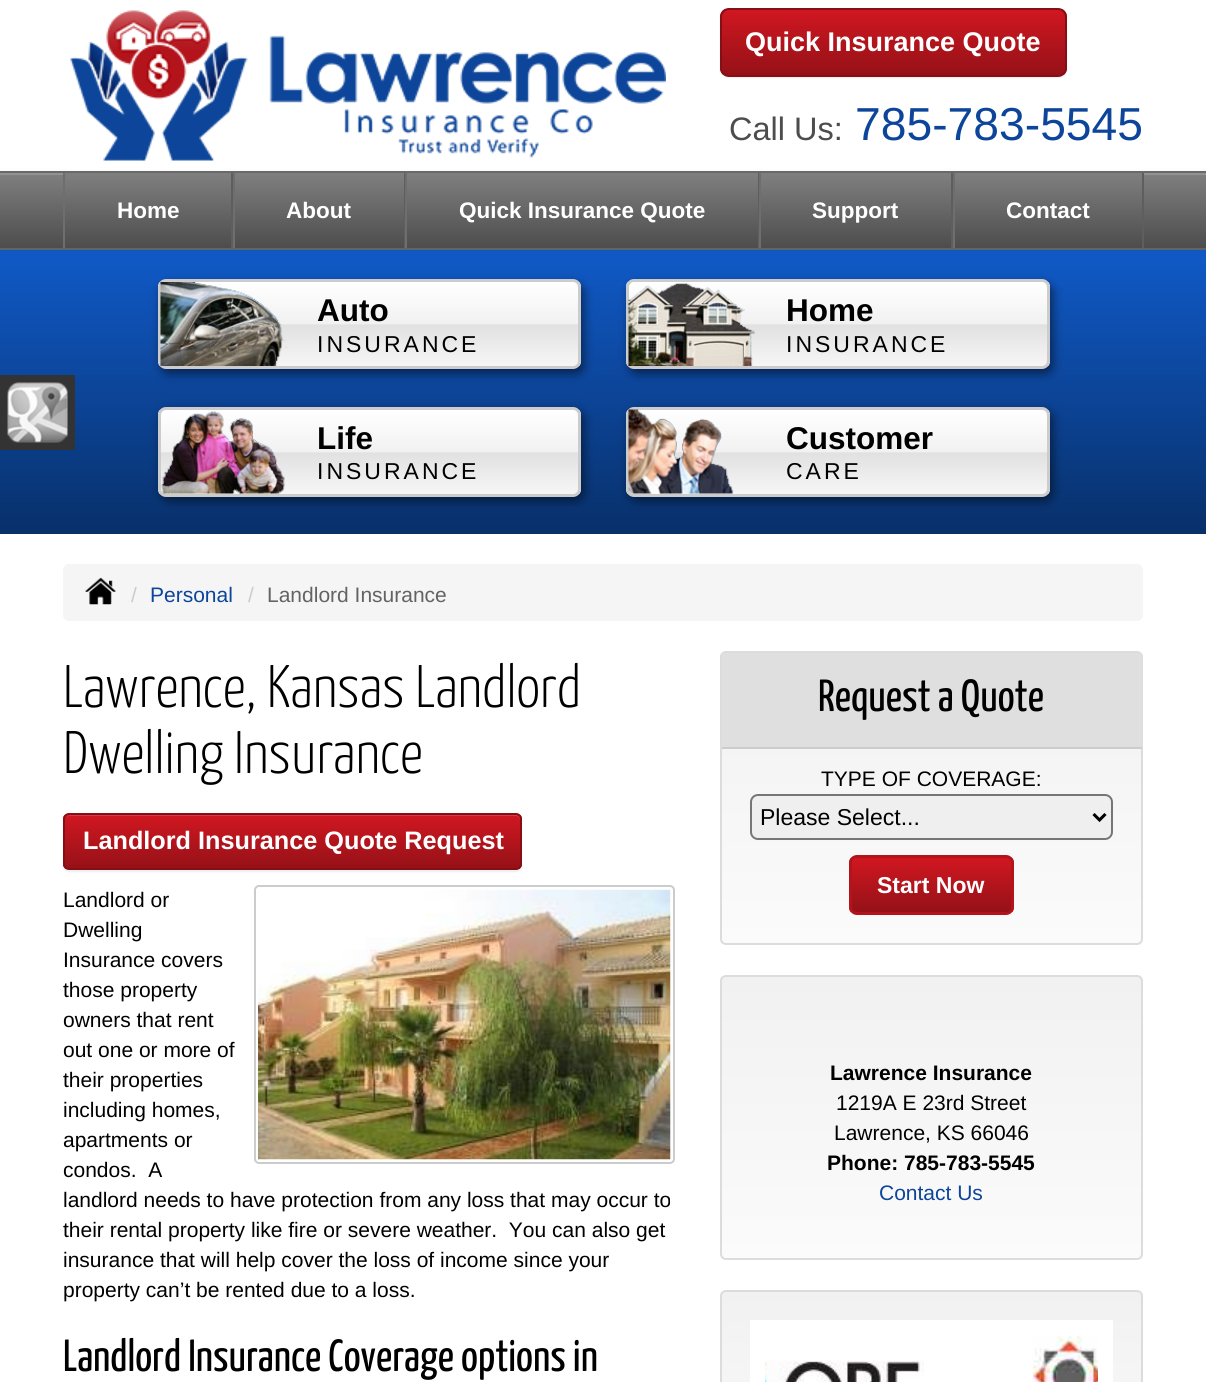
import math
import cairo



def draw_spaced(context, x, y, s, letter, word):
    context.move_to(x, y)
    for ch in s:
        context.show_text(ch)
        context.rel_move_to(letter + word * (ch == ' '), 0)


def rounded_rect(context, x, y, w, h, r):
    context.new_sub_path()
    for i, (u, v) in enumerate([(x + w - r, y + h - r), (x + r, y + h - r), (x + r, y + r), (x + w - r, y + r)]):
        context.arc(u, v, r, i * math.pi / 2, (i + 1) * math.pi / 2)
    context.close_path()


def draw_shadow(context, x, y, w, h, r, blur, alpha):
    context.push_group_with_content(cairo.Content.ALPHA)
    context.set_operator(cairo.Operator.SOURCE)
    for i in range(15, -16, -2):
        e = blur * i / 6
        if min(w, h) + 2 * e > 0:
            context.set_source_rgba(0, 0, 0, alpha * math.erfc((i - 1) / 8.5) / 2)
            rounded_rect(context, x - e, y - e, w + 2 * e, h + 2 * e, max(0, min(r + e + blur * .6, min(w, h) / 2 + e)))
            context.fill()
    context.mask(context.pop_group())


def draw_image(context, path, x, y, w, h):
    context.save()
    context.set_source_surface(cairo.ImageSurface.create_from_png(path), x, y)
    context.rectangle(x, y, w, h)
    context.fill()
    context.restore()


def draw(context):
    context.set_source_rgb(1, 1, 1)
    context.paint()
    draw_image(context, "images/1.png", 70, 10, 596, 151)
    context.set_source_rgb(0, 0, 0)
    draw_shadow(context, 720, 9, 347, 69, 9, 1, 0.07)
    context.save()
    rounded_rect(context, 720, 8, 347, 69, 9)
    context.clip()
    gradient = cairo.LinearGradient(893, 9, 893, 75)
    gradient.add_color_stop_rgba(0, 209 / 255, 23 / 255, 33 / 255, 1)
    gradient.add_color_stop_rgba(1, 149 / 255, 17 / 255, 23 / 255, 1)
    context.set_source(gradient)
    context.rectangle(720, 9, 347, 66)
    context.fill()
    context.restore()
    rounded_rect(context, 721, 9, 345, 67, 8)
    context.set_source_rgb(133 / 255, 15 / 255, 21 / 255)
    context.stroke()
    gradient = cairo.LinearGradient(603, 249, 603, 534)
    gradient.add_color_stop_rgba(0, 16 / 255, 90 / 255, 200 / 255, 1)
    gradient.add_color_stop_rgba(1, 8 / 255, 48 / 255, 106 / 255, 1)
    context.set_source(gradient)
    context.rectangle(0, 250, 1206, 284)
    context.fill()
    context.set_source_rgb(0, 0, 0)
    draw_shadow(context, 0, 173, 1206, 78, 0, 4, 0.07)
    gradient = cairo.LinearGradient(603, 172, 603, 248)
    gradient.add_color_stop_rgba(0, 128 / 255, 128 / 255, 128 / 255, 1)
    gradient.add_color_stop_rgba(1, 77 / 255, 77 / 255, 77 / 255, 1)
    context.set_source(gradient)
    context.rectangle(0, 175, 1206, 73)
    context.fill()
    context.set_source_rgb(146 / 255, 146 / 255, 146 / 255)
    context.rectangle(0, 173, 1206, 2)
    context.fill()
    context.set_source_rgb(105 / 255, 105 / 255, 105 / 255)
    context.rectangle(0, 171, 1206, 2)
    context.fill()
    context.set_source_rgb(99 / 255, 99 / 255, 99 / 255)
    context.rectangle(0, 248, 1206, 2)
    context.fill()
    gradient = cairo.LinearGradient(603, 172, 603, 248)
    gradient.add_color_stop_rgba(0, 128 / 255, 128 / 255, 128 / 255, 1)
    gradient.add_color_stop_rgba(1, 77 / 255, 77 / 255, 77 / 255, 1)
    context.set_source(gradient)
    context.rectangle(65, 173, 1077, 2)
    context.fill()
    context.set_source_rgb(94 / 255, 94 / 255, 94 / 255)
    context.rectangle(231, 173, 2, 75)
    context.fill()
    context.set_source_rgb(110 / 255, 110 / 255, 110 / 255)
    context.rectangle(63, 173, 2, 75)
    context.fill()
    context.set_source_rgb(94 / 255, 94 / 255, 94 / 255)
    context.rectangle(404, 173, 1, 75)
    context.fill()
    context.set_source_rgb(110 / 255, 110 / 255, 110 / 255)
    context.rectangle(233, 173, 2, 75)
    context.fill()
    context.set_source_rgb(94 / 255, 94 / 255, 94 / 255)
    context.rectangle(758, 173, 1, 75)
    context.fill()
    context.set_source_rgb(110 / 255, 110 / 255, 110 / 255)
    context.rectangle(405, 173, 2, 75)
    context.fill()
    context.set_source_rgb(94 / 255, 94 / 255, 94 / 255)
    context.rectangle(951, 173, 2, 75)
    context.fill()
    context.set_source_rgb(110 / 255, 110 / 255, 110 / 255)
    context.rectangle(759, 173, 2, 75)
    context.fill()
    context.set_source_rgb(94 / 255, 94 / 255, 94 / 255)
    context.rectangle(1142, 173, 2, 75)
    context.fill()
    context.set_source_rgb(110 / 255, 110 / 255, 110 / 255)
    context.rectangle(953, 173, 2, 75)
    context.fill()
    context.set_source_rgb(51 / 255, 51 / 255, 51 / 255)
    context.rectangle(0, 375, 75, 75)
    context.fill()
    draw_image(context, "images/2.png", 7, 382, 61, 61)
    context.set_source_rgb(0, 0, 0)
    draw_shadow(context, 161, 284, 423, 90, 8, 5, 0.5)
    context.save()
    rounded_rect(context, 158, 279, 423, 90, 8)
    context.clip()
    gradient = cairo.LinearGradient(369, 282, 369, 366)
    gradient.add_color_stop_rgba(0, 1, 1, 1, 1)
    gradient.add_color_stop_rgba(0.5, 241 / 255, 241 / 255, 241 / 255, 1)
    gradient.add_color_stop_rgba(0.51, 225 / 255, 225 / 255, 225 / 255, 1)
    gradient.add_color_stop_rgba(1, 246 / 255, 246 / 255, 246 / 255, 1)
    context.set_source(gradient)
    context.rectangle(158, 282, 423, 84)
    context.fill()
    context.restore()
    rounded_rect(context, 159.5, 280.5, 420, 87, 6.5)
    context.set_source_rgb(204 / 255, 204 / 255, 204 / 255)
    context.set_line_width(3)
    context.stroke()
    draw_image(context, "images/3.png", 160, 282, 127, 84)
    context.set_source_rgb(0, 0, 0)
    draw_shadow(context, 629, 284, 424, 90, 8, 5, 0.5)
    context.save()
    rounded_rect(context, 626, 279, 424, 90, 8)
    context.clip()
    gradient = cairo.LinearGradient(838, 282, 838, 366)
    gradient.add_color_stop_rgba(0, 1, 1, 1, 1)
    gradient.add_color_stop_rgba(0.5, 241 / 255, 241 / 255, 241 / 255, 1)
    gradient.add_color_stop_rgba(0.51, 225 / 255, 225 / 255, 225 / 255, 1)
    gradient.add_color_stop_rgba(1, 246 / 255, 246 / 255, 246 / 255, 1)
    context.set_source(gradient)
    context.rectangle(626, 282, 424, 84)
    context.fill()
    context.restore()
    rounded_rect(context, 627.5, 280.5, 421, 87, 6.5)
    context.set_source_rgb(204 / 255, 204 / 255, 204 / 255)
    context.stroke()
    draw_image(context, "images/4.png", 628, 283, 127, 83)
    context.set_source_rgb(0, 0, 0)
    draw_shadow(context, 161, 411, 423, 90, 8, 5, 0.5)
    context.save()
    rounded_rect(context, 158, 407, 423, 90, 8)
    context.clip()
    gradient = cairo.LinearGradient(369, 410, 369, 494)
    gradient.add_color_stop_rgba(0, 1, 1, 1, 1)
    gradient.add_color_stop_rgba(0.5, 241 / 255, 241 / 255, 241 / 255, 1)
    gradient.add_color_stop_rgba(0.51, 225 / 255, 225 / 255, 225 / 255, 1)
    gradient.add_color_stop_rgba(1, 246 / 255, 246 / 255, 246 / 255, 1)
    context.set_source(gradient)
    context.rectangle(158, 410, 423, 84)
    context.fill()
    context.restore()
    rounded_rect(context, 159.5, 408.5, 420, 87, 6.5)
    context.set_source_rgb(204 / 255, 204 / 255, 204 / 255)
    context.stroke()
    draw_image(context, "images/5.png", 161, 411, 124, 83)
    context.set_source_rgb(0, 0, 0)
    draw_shadow(context, 629, 411, 424, 90, 8, 5, 0.5)
    context.save()
    rounded_rect(context, 626, 407, 424, 90, 8)
    context.clip()
    gradient = cairo.LinearGradient(838, 410, 838, 494)
    gradient.add_color_stop_rgba(0, 1, 1, 1, 1)
    gradient.add_color_stop_rgba(0.5, 241 / 255, 241 / 255, 241 / 255, 1)
    gradient.add_color_stop_rgba(0.51, 225 / 255, 225 / 255, 225 / 255, 1)
    gradient.add_color_stop_rgba(1, 246 / 255, 246 / 255, 246 / 255, 1)
    context.set_source(gradient)
    context.rectangle(626, 410, 424, 84)
    context.fill()
    context.restore()
    rounded_rect(context, 627.5, 408.5, 421, 87, 6.5)
    context.set_source_rgb(204 / 255, 204 / 255, 204 / 255)
    context.stroke()
    draw_image(context, "images/6.png", 628, 409, 106, 85)
    context.set_source_rgb(245 / 255, 245 / 255, 245 / 255)
    rounded_rect(context, 63, 564, 1080, 57, 6)
    context.fill()
    draw_image(context, "images/7.png", 85, 577, 31, 28)
    context.set_source_rgb(0, 0, 0)
    draw_shadow(context, 63, 815, 459, 57, 6, 1, 0.07)
    context.save()
    rounded_rect(context, 63, 813, 459, 57, 6)
    context.clip()
    gradient = cairo.LinearGradient(293, 815, 293, 869)
    gradient.add_color_stop_rgba(0, 209 / 255, 23 / 255, 33 / 255, 1)
    gradient.add_color_stop_rgba(1, 149 / 255, 17 / 255, 23 / 255, 1)
    context.set_source(gradient)
    context.rectangle(63, 815, 459, 54)
    context.fill()
    context.restore()
    context.set_source_rgba(1, 1, 1, 0.15)
    context.new_path()
    context.move_to(69, 816)
    context.line_to(516, 816)
    context.curve_to(518, 816, 520, 818, 520, 820)
    context.line_to(520, 867)
    context.curve_to(521, 866, 521, 865, 521, 864)
    context.line_to(521, 820)
    context.curve_to(521, 817, 519, 815, 516, 815)
    context.line_to(70, 815)
    context.curve_to(68, 815, 67, 816, 66, 817)
    context.close_path()
    context.fill()
    rounded_rect(context, 64, 814, 457, 55, 5)
    context.set_source_rgb(133 / 255, 15 / 255, 21 / 255)
    context.set_line_width(2)
    context.stroke()
    rounded_rect(context, 255, 886, 419, 277, 4)
    context.set_source_rgb(204 / 255, 204 / 255, 204 / 255)
    context.stroke()
    draw_image(context, "images/8.png", 258, 889, 413, 271)
    context.save()
    rounded_rect(context, 720, 651, 423, 294, 6)
    context.clip()
    gradient = cairo.LinearGradient(932, 653, 932, 944)
    gradient.add_color_stop_rgba(0, 241 / 255, 241 / 255, 241 / 255, 1)
    gradient.add_color_stop_rgba(1, 251 / 255, 251 / 255, 251 / 255, 1)
    context.set_source(gradient)
    context.rectangle(720, 653, 423, 291)
    context.fill()
    context.restore()
    rounded_rect(context, 721, 652, 421, 292, 5)
    context.set_source_rgb(220 / 255, 220 / 255, 220 / 255)
    context.stroke()
    context.set_source_rgb(223 / 255, 223 / 255, 223 / 255)
    context.rectangle(722, 653, 420, 94)
    context.fill()
    context.set_source_rgb(204 / 255, 204 / 255, 204 / 255)
    context.rectangle(722, 747, 420, 2)
    context.fill()
    context.set_source_rgb(239 / 255, 239 / 255, 239 / 255)
    rounded_rect(context, 751, 795, 361, 44, 7)
    context.fill_preserve()
    context.set_source_rgb(118 / 255, 118 / 255, 118 / 255)
    context.stroke()
    context.new_path()
    context.move_to(1093.5, 814)
    context.line_to(1099.5, 820)
    context.line_to(1105.5, 814)
    context.set_source_rgb(0, 0, 0)
    context.set_line_width(3)
    context.stroke()
    context.save()
    rounded_rect(context, 849, 855, 165, 60, 8)
    context.clip()
    gradient = cairo.LinearGradient(932, 858, 932, 912)
    gradient.add_color_stop_rgba(0, 209 / 255, 23 / 255, 33 / 255, 1)
    gradient.add_color_stop_rgba(1, 149 / 255, 17 / 255, 23 / 255, 1)
    context.set_source(gradient)
    context.rectangle(849, 858, 165, 54)
    context.fill()
    context.restore()
    rounded_rect(context, 850.5, 856.5, 162, 57, 6.5)
    context.set_source_rgb(179 / 255, 20 / 255, 28 / 255)
    context.stroke()
    context.save()
    rounded_rect(context, 720, 975, 423, 285, 6)
    context.clip()
    gradient = cairo.LinearGradient(932, 977, 932, 1259)
    gradient.add_color_stop_rgba(0, 241 / 255, 241 / 255, 241 / 255, 1)
    gradient.add_color_stop_rgba(1, 251 / 255, 251 / 255, 251 / 255, 1)
    context.set_source(gradient)
    context.rectangle(720, 977, 423, 282)
    context.fill()
    context.restore()
    rounded_rect(context, 721, 976, 421, 283, 5)
    context.set_source_rgb(220 / 255, 220 / 255, 220 / 255)
    context.set_line_width(2)
    context.stroke()
    context.save()
    rounded_rect(context, 720, 1290, 423, 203, 6)
    context.clip()
    gradient = cairo.LinearGradient(932, 1292, 932, 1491)
    gradient.add_color_stop_rgba(0, 241 / 255, 241 / 255, 241 / 255, 1)
    gradient.add_color_stop_rgba(1, 251 / 255, 251 / 255, 251 / 255, 1)
    context.set_source(gradient)
    context.rectangle(720, 1292, 423, 90)
    context.fill()
    context.restore()
    rounded_rect(context, 721, 1291, 421, 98, 5)
    context.stroke()
    context.set_source_rgb(1, 1, 1)
    context.rectangle(750, 1320, 363, 62)
    context.fill()
    draw_image(context, "images/9.png", 765, 1360, 159, 22)
    draw_image(context, "images/10.png", 1032, 1336, 66, 46)
    context.select_font_face("Liberation Sans", cairo.FontSlant.NORMAL, cairo.FontWeight.BOLD)
    context.set_font_size(27)
    context.move_to(745, 51)
    context.show_text("Quick Insurance Quote")
    context.select_font_face("Liberation Sans")
    context.set_font_size(32.5)
    context.set_source_rgb(77 / 255, 77 / 255, 77 / 255)
    context.move_to(729, 140)
    context.show_text("Call Us:")
    context.set_font_size(46.25)
    context.set_source_rgb(12 / 255, 69 / 255, 153 / 255)
    context.move_to(855, 140)
    context.show_text("785-783-5545")
    context.select_font_face("Liberation Sans", cairo.FontSlant.NORMAL, cairo.FontWeight.BOLD)
    context.set_font_size(22.5)
    context.set_source_rgb(1, 1, 1)
    context.move_to(117, 218)
    context.show_text("Home")
    context.move_to(286, 218)
    context.show_text("About")
    context.move_to(459, 218)
    context.show_text("Quick Insurance Quote")
    context.move_to(812, 218)
    context.show_text("Support")
    context.move_to(1006, 218)
    context.show_text("Contact")
    context.set_font_size(31.5)
    context.set_source_rgb(0, 0, 0)
    context.move_to(317, 321)
    context.show_text("Auto")
    context.select_font_face("Liberation Sans")
    context.set_font_size(23)
    draw_spaced(context, 317, 352, "INSURANCE", 3, 0)
    context.select_font_face("Liberation Sans", cairo.FontSlant.NORMAL, cairo.FontWeight.BOLD)
    context.set_font_size(31.5)
    context.move_to(786, 321)
    context.show_text("Home")
    context.select_font_face("Liberation Sans")
    context.set_font_size(23)
    draw_spaced(context, 786, 352, "INSURANCE", 3, 0)
    context.select_font_face("Liberation Sans", cairo.FontSlant.NORMAL, cairo.FontWeight.BOLD)
    context.set_font_size(31.5)
    context.move_to(317, 449)
    context.show_text("Life")
    context.select_font_face("Liberation Sans")
    context.set_font_size(23)
    draw_spaced(context, 317, 479, "INSURANCE", 3, 0)
    context.select_font_face("Liberation Sans", cairo.FontSlant.NORMAL, cairo.FontWeight.BOLD)
    context.set_font_size(31.5)
    context.move_to(786, 449)
    context.show_text("Customer")
    context.select_font_face("Liberation Sans")
    context.set_font_size(23)
    draw_spaced(context, 786, 479, "CARE", 3, 0)
    context.set_font_size(21)
    context.set_source_rgb(204 / 255, 204 / 255, 204 / 255)
    context.move_to(131, 602)
    context.show_text("/")
    context.set_source_rgb(12 / 255, 69 / 255, 153 / 255)
    context.move_to(150, 602)
    context.show_text("Personal")
    context.set_source_rgb(204 / 255, 204 / 255, 204 / 255)
    context.move_to(248, 602)
    context.show_text("/")
    context.set_source_rgb(99 / 255, 99 / 255, 99 / 255)
    context.move_to(267, 602)
    context.show_text("Landlord Insurance")
    context.select_font_face("Yanone Kaffeesatz Light")
    context.set_font_size(60)
    context.set_source_rgb(0, 0, 0)
    context.move_to(63, 707)
    context.show_text("Lawrence, Kansas Landlord")
    context.move_to(63, 773)
    context.show_text("Dwelling Insurance")
    context.select_font_face("Liberation Sans", cairo.FontSlant.NORMAL, cairo.FontWeight.BOLD)
    context.set_font_size(25.25)
    context.set_source_rgb(1, 1, 1)
    context.move_to(83, 849)
    context.show_text("Landlord Insurance Quote Request")
    context.select_font_face("Liberation Sans")
    context.set_font_size(21)
    context.set_source_rgb(0, 0, 0)
    context.move_to(63, 907)
    context.show_text("Landlord or")
    context.move_to(63, 937)
    context.show_text("Dwelling")
    context.move_to(63, 967)
    context.show_text("Insurance covers")
    context.move_to(63, 997)
    context.show_text("those property")
    context.move_to(63, 1027)
    context.show_text("owners that rent")
    context.move_to(63, 1057)
    context.show_text("out one or more of")
    context.move_to(63, 1087)
    context.show_text("their properties")
    context.move_to(63, 1117)
    context.show_text("including homes,")
    context.move_to(63, 1147)
    context.show_text("apartments or")
    context.move_to(63, 1177)
    context.show_text("condos.  A")
    context.move_to(63, 1207)
    context.show_text("landlord needs to have protection from any loss that may occur to")
    context.move_to(63, 1237)
    context.show_text("their rental property like fire or severe weather.  You can also get")
    context.move_to(63, 1267)
    context.show_text("insurance that will help cover the loss of income since your")
    context.move_to(63, 1297)
    context.show_text("property can’t be rented due to a loss.")
    context.select_font_face("Yanone Kaffeesatz")
    context.set_font_size(45)
    context.move_to(63, 1371)
    context.show_text("Landlord Insurance Coverage options in")
    context.move_to(818, 711)
    context.show_text("Request a Quote")
    context.select_font_face("Liberation Sans")
    context.set_font_size(21)
    context.move_to(821, 786)
    context.show_text("TYPE OF COVERAGE:")
    context.set_font_size(23)
    context.move_to(760, 825)
    context.show_text("Please Select...")
    context.select_font_face("Liberation Sans", cairo.FontSlant.NORMAL, cairo.FontWeight.BOLD)
    context.set_source_rgb(1, 1, 1)
    context.move_to(877, 893)
    context.show_text("Start Now")
    context.set_font_size(21)
    context.set_source_rgb(0, 0, 0)
    context.move_to(830, 1080)
    context.show_text("Lawrence Insurance")
    context.select_font_face("Liberation Sans")
    context.move_to(836, 1110)
    context.show_text("1219A E 23rd Street")
    context.move_to(834, 1140)
    context.show_text("Lawrence, KS 66046")
    context.select_font_face("Liberation Sans", cairo.FontSlant.NORMAL, cairo.FontWeight.BOLD)
    context.move_to(827, 1170)
    context.show_text("Phone: 785-783-5545")
    context.select_font_face("Liberation Sans")
    context.set_source_rgb(12 / 255, 69 / 255, 153 / 255)
    context.move_to(879, 1200)
    context.show_text("Contact Us")


surface = cairo.ImageSurface(cairo.Format.RGB24, 1206, 1382)
context = cairo.Context(surface)
options = cairo.FontOptions()
options.set_hint_metrics(cairo.HintMetrics.OFF)
options.set_hint_style(cairo.HintStyle.NONE)
context.set_font_options(options)
context.set_miter_limit(4)
draw(context)
surface.write_to_png("out.png")
